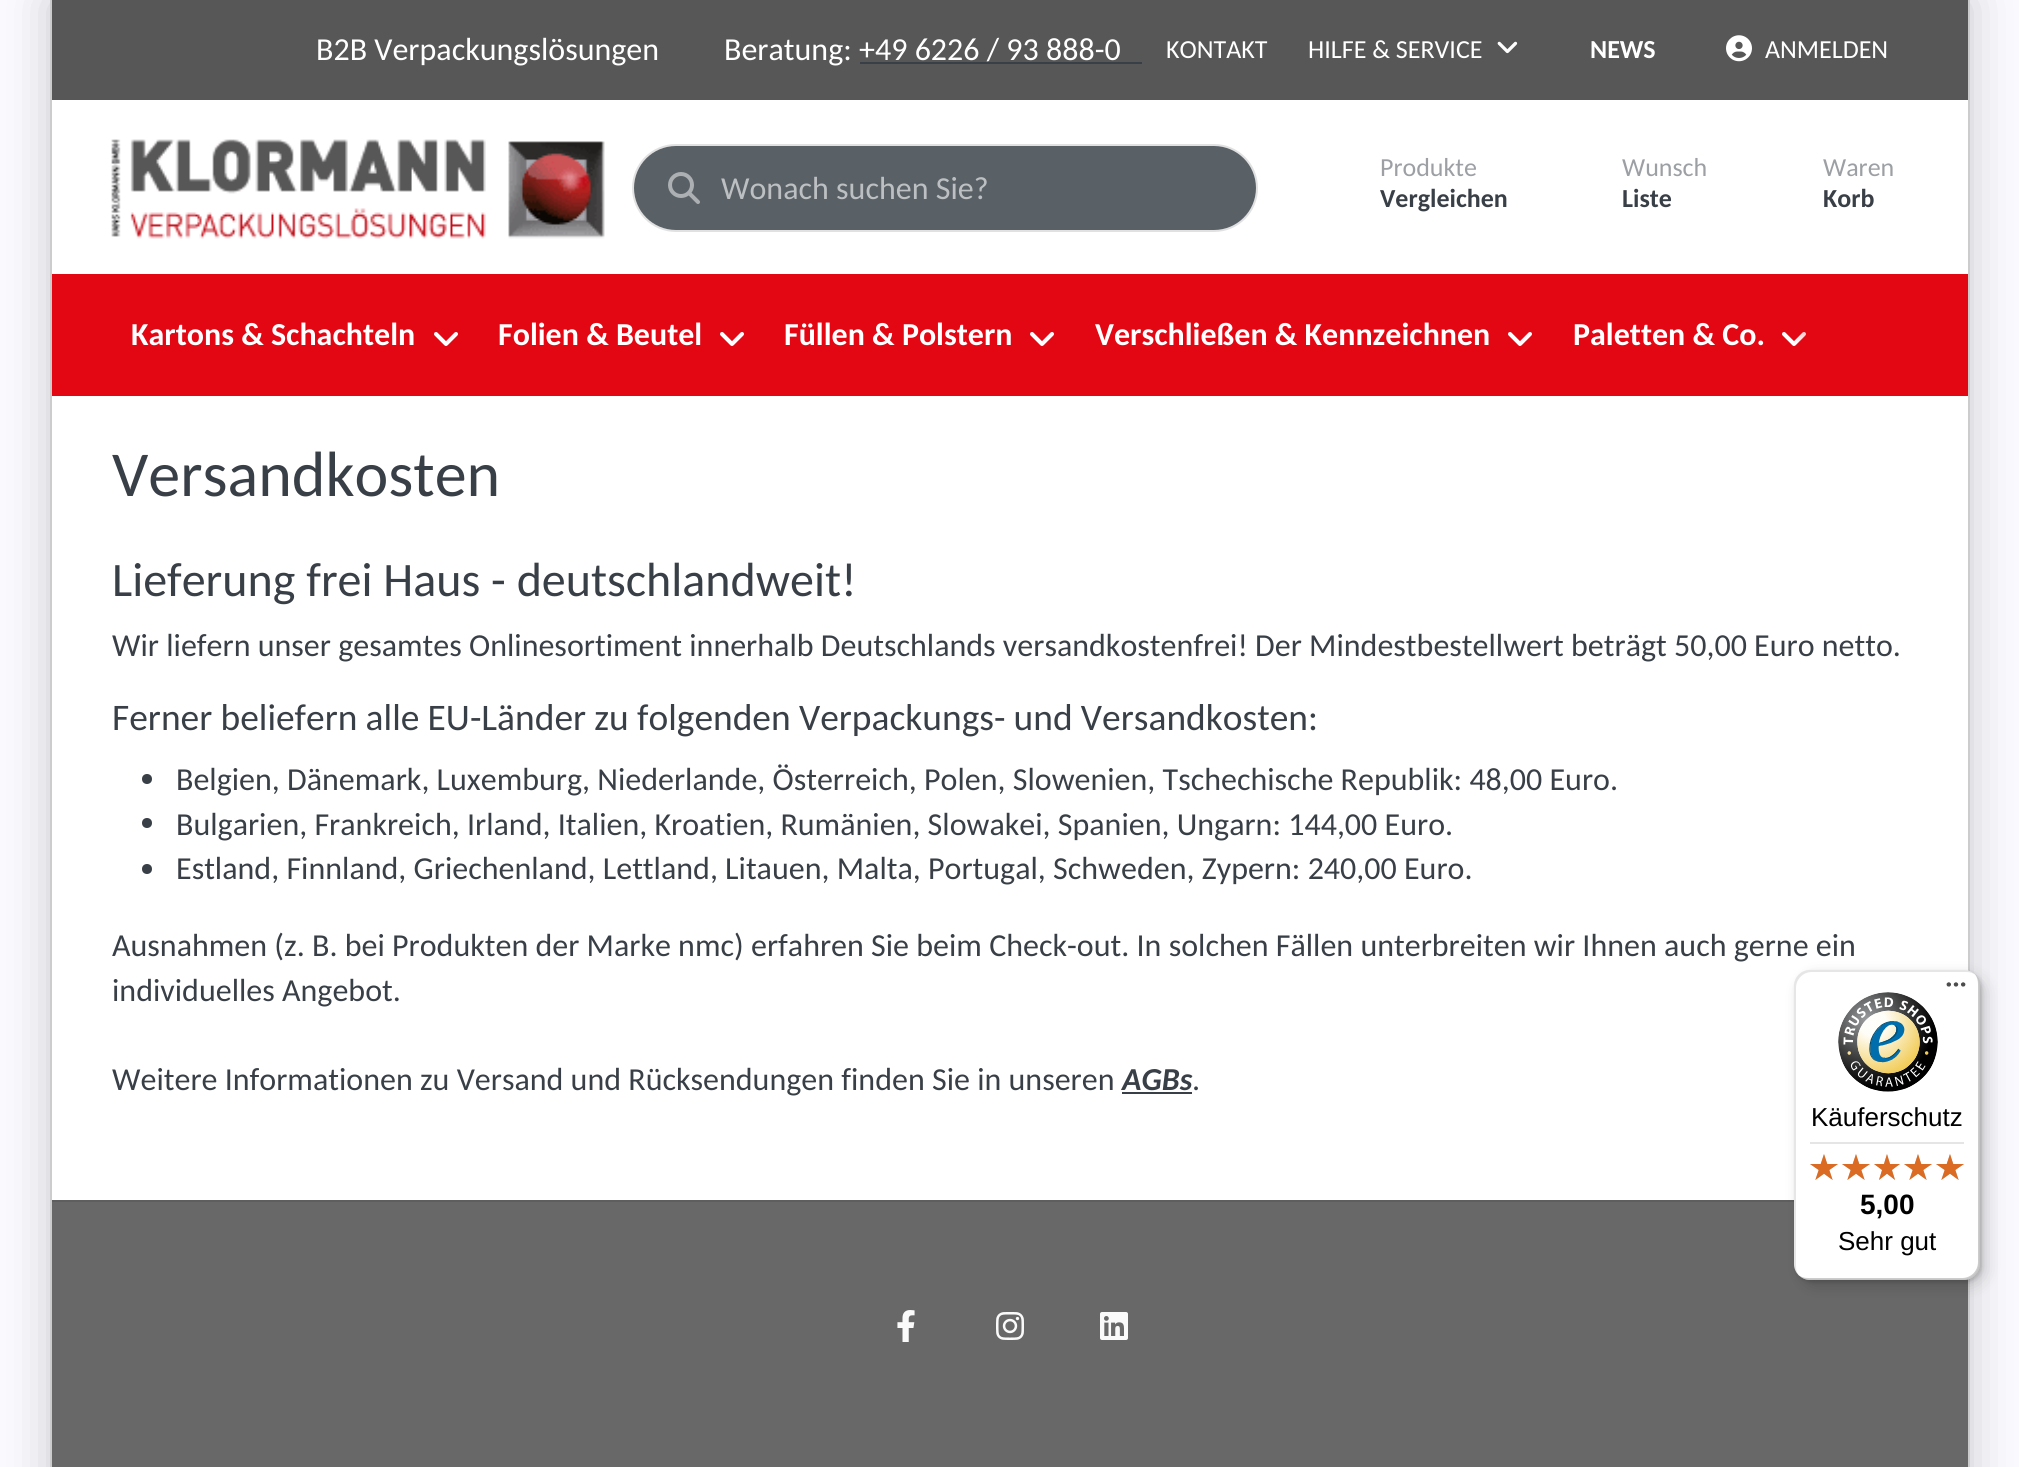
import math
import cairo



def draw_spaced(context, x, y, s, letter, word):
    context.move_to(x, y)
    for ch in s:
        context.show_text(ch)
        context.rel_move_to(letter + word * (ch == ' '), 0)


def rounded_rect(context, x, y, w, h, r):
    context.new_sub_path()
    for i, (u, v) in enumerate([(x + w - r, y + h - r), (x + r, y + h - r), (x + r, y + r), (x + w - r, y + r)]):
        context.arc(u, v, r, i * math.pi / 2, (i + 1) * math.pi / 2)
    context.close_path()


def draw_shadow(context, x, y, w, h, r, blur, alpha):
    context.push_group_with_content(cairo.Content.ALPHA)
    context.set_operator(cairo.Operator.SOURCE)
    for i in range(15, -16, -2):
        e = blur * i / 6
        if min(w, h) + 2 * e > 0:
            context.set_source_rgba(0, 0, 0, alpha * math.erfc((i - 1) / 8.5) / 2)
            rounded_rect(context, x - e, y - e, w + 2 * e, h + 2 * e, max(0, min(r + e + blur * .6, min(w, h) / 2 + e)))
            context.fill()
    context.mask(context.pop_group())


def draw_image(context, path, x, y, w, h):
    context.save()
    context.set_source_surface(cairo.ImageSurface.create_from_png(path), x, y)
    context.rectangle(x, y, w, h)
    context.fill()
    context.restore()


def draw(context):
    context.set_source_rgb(251 / 255, 251 / 255, 1)
    context.paint()
    context.set_source_rgb(0, 0, 0)
    draw_shadow(context, 50, 0, 1920, 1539, 0, 24, 0.2)
    context.set_source_rgb(1, 1, 1)
    context.rectangle(52, 396, 1916, 804)
    context.fill()
    context.set_source_rgb(204 / 255, 204 / 255, 204 / 255)
    context.rectangle(1968, 0, 2, 1467)
    context.fill()
    context.rectangle(50, 0, 2, 1467)
    context.fill()
    context.set_source_rgb(87 / 255, 87 / 255, 87 / 255)
    context.rectangle(52, 0, 1916, 100)
    context.fill()
    context.set_source_rgb(1, 1, 1)
    context.rectangle(52, 100, 1916, 174)
    context.fill()
    draw_image(context, "images/1.png", 1497, 41, 21, 13)
    draw_image(context, "images/2.png", 1726, 35, 26, 27)
    draw_image(context, "images/3.png", 111, 139, 494, 100)
    context.set_source_rgb(89 / 255, 97 / 255, 103 / 255)
    rounded_rect(context, 634, 146, 622, 84, 42)
    context.fill()
    rounded_rect(context, 633, 145, 624, 86, 43)
    context.set_source_rgba(0, 0, 0, 0.12)
    context.stroke()
    draw_image(context, "images/4.png", 668, 172, 32, 32)
    context.set_source_rgb(227 / 255, 6 / 255, 19 / 255)
    context.rectangle(52, 274, 1916, 122)
    context.fill()
    draw_image(context, "images/5.png", 434, 332, 24, 14)
    draw_image(context, "images/5.png", 720, 332, 24, 14)
    draw_image(context, "images/5.png", 1030, 332, 24, 14)
    draw_image(context, "images/5.png", 1508, 332, 24, 14)
    draw_image(context, "images/5.png", 1782, 332, 24, 14)
    gradient = cairo.LinearGradient(1796, 335, 1908, 335)
    gradient.add_color_stop_rgba(0, 227 / 255, 6 / 255, 19 / 255, 0)
    gradient.add_color_stop_rgba(0.4, 227 / 255, 6 / 255, 19 / 255, 1)
    gradient.add_color_stop_rgba(1, 227 / 255, 6 / 255, 19 / 255, 1)
    context.set_source(gradient)
    context.rectangle(1797, 332, 9, 12)
    context.fill()
    context.set_source_rgb(57 / 255, 63 / 255, 70 / 255)
    context.arc(147, 779, 5, 0, 2 * math.pi)
    context.fill()
    context.arc(147, 823, 5, 0, 2 * math.pi)
    context.fill()
    context.arc(147, 869, 5, 0, 2 * math.pi)
    context.fill()
    context.rectangle(1122, 1092, 70, 2)
    context.fill()
    context.set_source_rgb(104 / 255, 104 / 255, 104 / 255)
    context.rectangle(52, 1202, 1916, 265)
    context.fill()
    context.set_source_rgb(94 / 255, 94 / 255, 94 / 255)
    context.rectangle(52, 1200, 1742, 2)
    context.fill()
    draw_image(context, "images/6.png", 897, 1310, 18, 32)
    draw_image(context, "images/7.png", 996, 1312, 28, 28)
    draw_image(context, "images/8.png", 1100, 1312, 28, 28)
    context.set_source_rgb(0, 0, 0)
    draw_shadow(context, 1800, 976, 186, 310, 16, 8, 0.15)
    draw_shadow(context, 1796, 972, 186, 310, 16, 2, 0.15)
    context.set_source_rgb(1, 1, 1)
    rounded_rect(context, 1794, 970, 186, 310, 16)
    context.fill()
    context.set_source_rgba(0, 0, 0, 0.1)
    context.new_path()
    context.move_to(1812, 972)
    context.line_to(1966, 972)
    context.curve_to(1970, 972, 1973, 973, 1976, 975)
    context.curve_to(1973, 972, 1969, 970, 1964, 970)
    context.line_to(1810, 970)
    context.curve_to(1801, 970, 1794, 977, 1794, 986)
    context.line_to(1794, 1264)
    context.curve_to(1794, 1269, 1796, 1273, 1799, 1276)
    context.curve_to(1797, 1273, 1796, 1270, 1796, 1266)
    context.line_to(1796, 988)
    context.curve_to(1796, 979, 1803, 972, 1812, 972)
    context.close_path()
    context.fill()
    context.set_source_rgba(0, 0, 0, 0.2)
    context.new_path()
    context.move_to(1798, 1275)
    context.curve_to(1801, 1278, 1805, 1280, 1810, 1280)
    context.line_to(1964, 1280)
    context.curve_to(1973, 1280, 1980, 1273, 1980, 1264)
    context.line_to(1980, 986)
    context.curve_to(1980, 981, 1978, 977, 1975, 974)
    context.curve_to(1977, 977, 1978, 980, 1978, 984)
    context.line_to(1978, 1262)
    context.curve_to(1978, 1271, 1971, 1278, 1962, 1278)
    context.line_to(1808, 1278)
    context.curve_to(1804, 1278, 1801, 1277, 1798, 1275)
    context.close_path()
    context.fill()
    context.set_source_rgba(50 / 255, 50 / 255, 50 / 255, 0.2)
    context.new_path()
    context.move_to(1799, 1275)
    context.curve_to(1802, 1278, 1806, 1280, 1810, 1280)
    context.line_to(1964, 1280)
    context.curve_to(1973, 1280, 1980, 1273, 1980, 1264)
    context.line_to(1980, 986)
    context.curve_to(1980, 982, 1978, 978, 1975, 975)
    context.curve_to(1978, 978, 1979, 981, 1979, 985)
    context.line_to(1979, 1263)
    context.curve_to(1979, 1272, 1972, 1279, 1963, 1279)
    context.line_to(1809, 1279)
    context.curve_to(1805, 1279, 1802, 1278, 1799, 1275)
    context.close_path()
    context.fill()
    context.set_source_rgba(1, 1, 1, 0.3)
    context.new_path()
    context.move_to(1799, 1275)
    context.curve_to(1802, 1278, 1806, 1280, 1810, 1280)
    context.line_to(1964, 1280)
    context.curve_to(1973, 1280, 1980, 1273, 1980, 1264)
    context.line_to(1980, 986)
    context.curve_to(1980, 982, 1978, 978, 1975, 975)
    context.curve_to(1978, 978, 1979, 981, 1979, 985)
    context.line_to(1979, 1263)
    context.curve_to(1979, 1272, 1972, 1279, 1963, 1279)
    context.line_to(1809, 1279)
    context.curve_to(1805, 1279, 1802, 1278, 1799, 1275)
    context.close_path()
    context.fill()
    draw_image(context, "images/9.png", 1946, 982, 20, 5)
    draw_image(context, "images/10.png", 1838, 992, 100, 100)
    context.set_source_rgb(229 / 255, 229 / 255, 229 / 255)
    context.rectangle(1810, 1142, 154, 2)
    context.fill()
    draw_image(context, "images/11.png", 1810, 1154, 28, 26)
    draw_image(context, "images/11.png", 1842, 1154, 28, 26)
    draw_image(context, "images/12.png", 1874, 1154, 26, 26)
    draw_image(context, "images/11.png", 1904, 1154, 28, 26)
    draw_image(context, "images/11.png", 1936, 1154, 28, 26)
    draw_image(context, "images/13.png", 1810, 1154, 28, 26)
    draw_image(context, "images/13.png", 1842, 1154, 28, 26)
    draw_image(context, "images/14.png", 1874, 1154, 26, 26)
    draw_image(context, "images/13.png", 1904, 1154, 28, 26)
    draw_image(context, "images/13.png", 1936, 1154, 28, 26)
    context.select_font_face("Carlito")
    context.set_font_size(32)
    context.set_source_rgb(1, 1, 1)
    context.move_to(316, 60)
    context.show_text("B2B Verpackungslösungen")
    context.move_to(724, 60)
    context.show_text("Beratung: +49 6226 / 93 888-0")
    context.set_source_rgb(57 / 255, 63 / 255, 70 / 255)
    context.rectangle(860, 62, 282, 2)
    context.fill()
    context.set_font_size(26)
    context.set_source_rgb(1, 1, 1)
    context.move_to(1166, 58)
    context.show_text("KONTAKT")
    context.move_to(1308, 58)
    context.show_text("HILFE & SERVICE")
    context.select_font_face("Carlito", cairo.FontSlant.NORMAL, cairo.FontWeight.BOLD)
    context.move_to(1590, 58)
    context.show_text("NEWS")
    context.select_font_face("Carlito")
    context.move_to(1765, 58)
    context.show_text("ANMELDEN")
    context.set_font_size(32)
    context.set_source_rgb(189 / 255, 192 / 255, 194 / 255)
    context.move_to(721, 199)
    context.show_text("Wonach suchen Sie?")
    context.set_font_size(26)
    context.set_source_rgb(156 / 255, 159 / 255, 163 / 255)
    context.move_to(1380, 176)
    context.show_text("Produkte")
    context.select_font_face("Carlito", cairo.FontSlant.NORMAL, cairo.FontWeight.BOLD)
    context.set_source_rgb(57 / 255, 63 / 255, 70 / 255)
    context.move_to(1380, 207)
    context.show_text("Vergleichen")
    context.select_font_face("Carlito")
    context.set_source_rgb(156 / 255, 159 / 255, 163 / 255)
    context.move_to(1622, 176)
    context.show_text("Wunsch")
    context.select_font_face("Carlito", cairo.FontSlant.NORMAL, cairo.FontWeight.BOLD)
    context.set_source_rgb(57 / 255, 63 / 255, 70 / 255)
    context.move_to(1622, 207)
    context.show_text("Liste")
    context.select_font_face("Carlito")
    context.set_source_rgb(156 / 255, 159 / 255, 163 / 255)
    context.move_to(1823, 176)
    context.show_text("Waren")
    context.select_font_face("Carlito", cairo.FontSlant.NORMAL, cairo.FontWeight.BOLD)
    context.set_source_rgb(57 / 255, 63 / 255, 70 / 255)
    context.move_to(1823, 207)
    context.show_text("Korb")
    context.set_font_size(32)
    context.set_source_rgb(1, 1, 1)
    context.move_to(131, 345)
    context.show_text("Kartons & Schachteln")
    context.move_to(498, 345)
    context.show_text("Folien & Beutel")
    context.move_to(784, 345)
    context.show_text("Füllen & Polstern")
    context.move_to(1095, 345)
    context.show_text("Verschließen & Kennzeichnen")
    context.move_to(1573, 345)
    context.show_text("Paletten & Co.")
    context.select_font_face("Carlito")
    context.set_font_size(64)
    context.set_source_rgb(57 / 255, 63 / 255, 70 / 255)
    context.move_to(112, 496)
    context.show_text("Versandkosten")
    context.set_font_size(48)
    context.move_to(112, 596)
    context.show_text("Lieferung frei Haus - deutschlandweit!")
    context.set_font_size(32)
    context.move_to(112, 656)
    context.show_text("Wir liefern unser gesamtes Onlinesortiment innerhalb Deutschlands versandkostenfrei! Der Mindestbestellwert beträgt 50,00 Euro netto.")
    context.set_font_size(37.45)
    draw_spaced(context, 112, 730, "Ferner beliefern alle EU-Länder zu folgenden Verpackungs- und Versandkosten:", 0, -0.25)
    context.set_font_size(32)
    context.move_to(176, 790)
    context.show_text("Belgien, Dänemark, Luxemburg, Niederlande, Österreich, Polen, Slowenien, Tschechische Republik: 48,00 Euro.")
    context.move_to(176, 835)
    context.show_text("Bulgarien, Frankreich, Irland, Italien, Kroatien, Rumänien, Slowakei, Spanien, Ungarn: 144,00 Euro.")
    context.move_to(176, 879)
    context.show_text("Estland, Finnland, Griechenland, Lettland, Litauen, Malta, Portugal, Schweden, Zypern: 240,00 Euro.")
    context.move_to(112, 956)
    context.show_text("Ausnahmen (z. B. bei Produkten der Marke nmc) erfahren Sie beim Check-out. In solchen Fällen unterbreiten wir Ihnen auch gerne ein")
    context.move_to(112, 1001)
    context.show_text("individuelles Angebot.")
    context.move_to(112, 1090)
    context.show_text("Weitere Informationen zu Versand und Rücksendungen finden Sie in unseren")
    context.select_font_face("Carlito", cairo.FontSlant.ITALIC, cairo.FontWeight.BOLD)
    context.move_to(1122, 1090)
    context.show_text("AGBs")
    context.select_font_face("Carlito")
    context.move_to(1192, 1090)
    context.show_text(".")
    context.select_font_face("Liberation Sans")
    context.set_font_size(26)
    context.set_source_rgb(0, 0, 0)
    context.move_to(1811, 1126)
    context.show_text("Käuferschutz")
    context.select_font_face("Liberation Sans", cairo.FontSlant.NORMAL, cairo.FontWeight.BOLD)
    context.set_font_size(28)
    context.move_to(1860, 1214)
    context.show_text("5,00")
    context.select_font_face("Liberation Sans")
    context.set_font_size(26)
    context.move_to(1838, 1250)
    context.show_text("Sehr gut")


surface = cairo.ImageSurface(cairo.Format.RGB24, 2019, 1467)
context = cairo.Context(surface)
options = cairo.FontOptions()
options.set_hint_metrics(cairo.HintMetrics.OFF)
options.set_hint_style(cairo.HintStyle.NONE)
context.set_font_options(options)
context.set_miter_limit(4)
draw(context)
surface.write_to_png("out.png")
